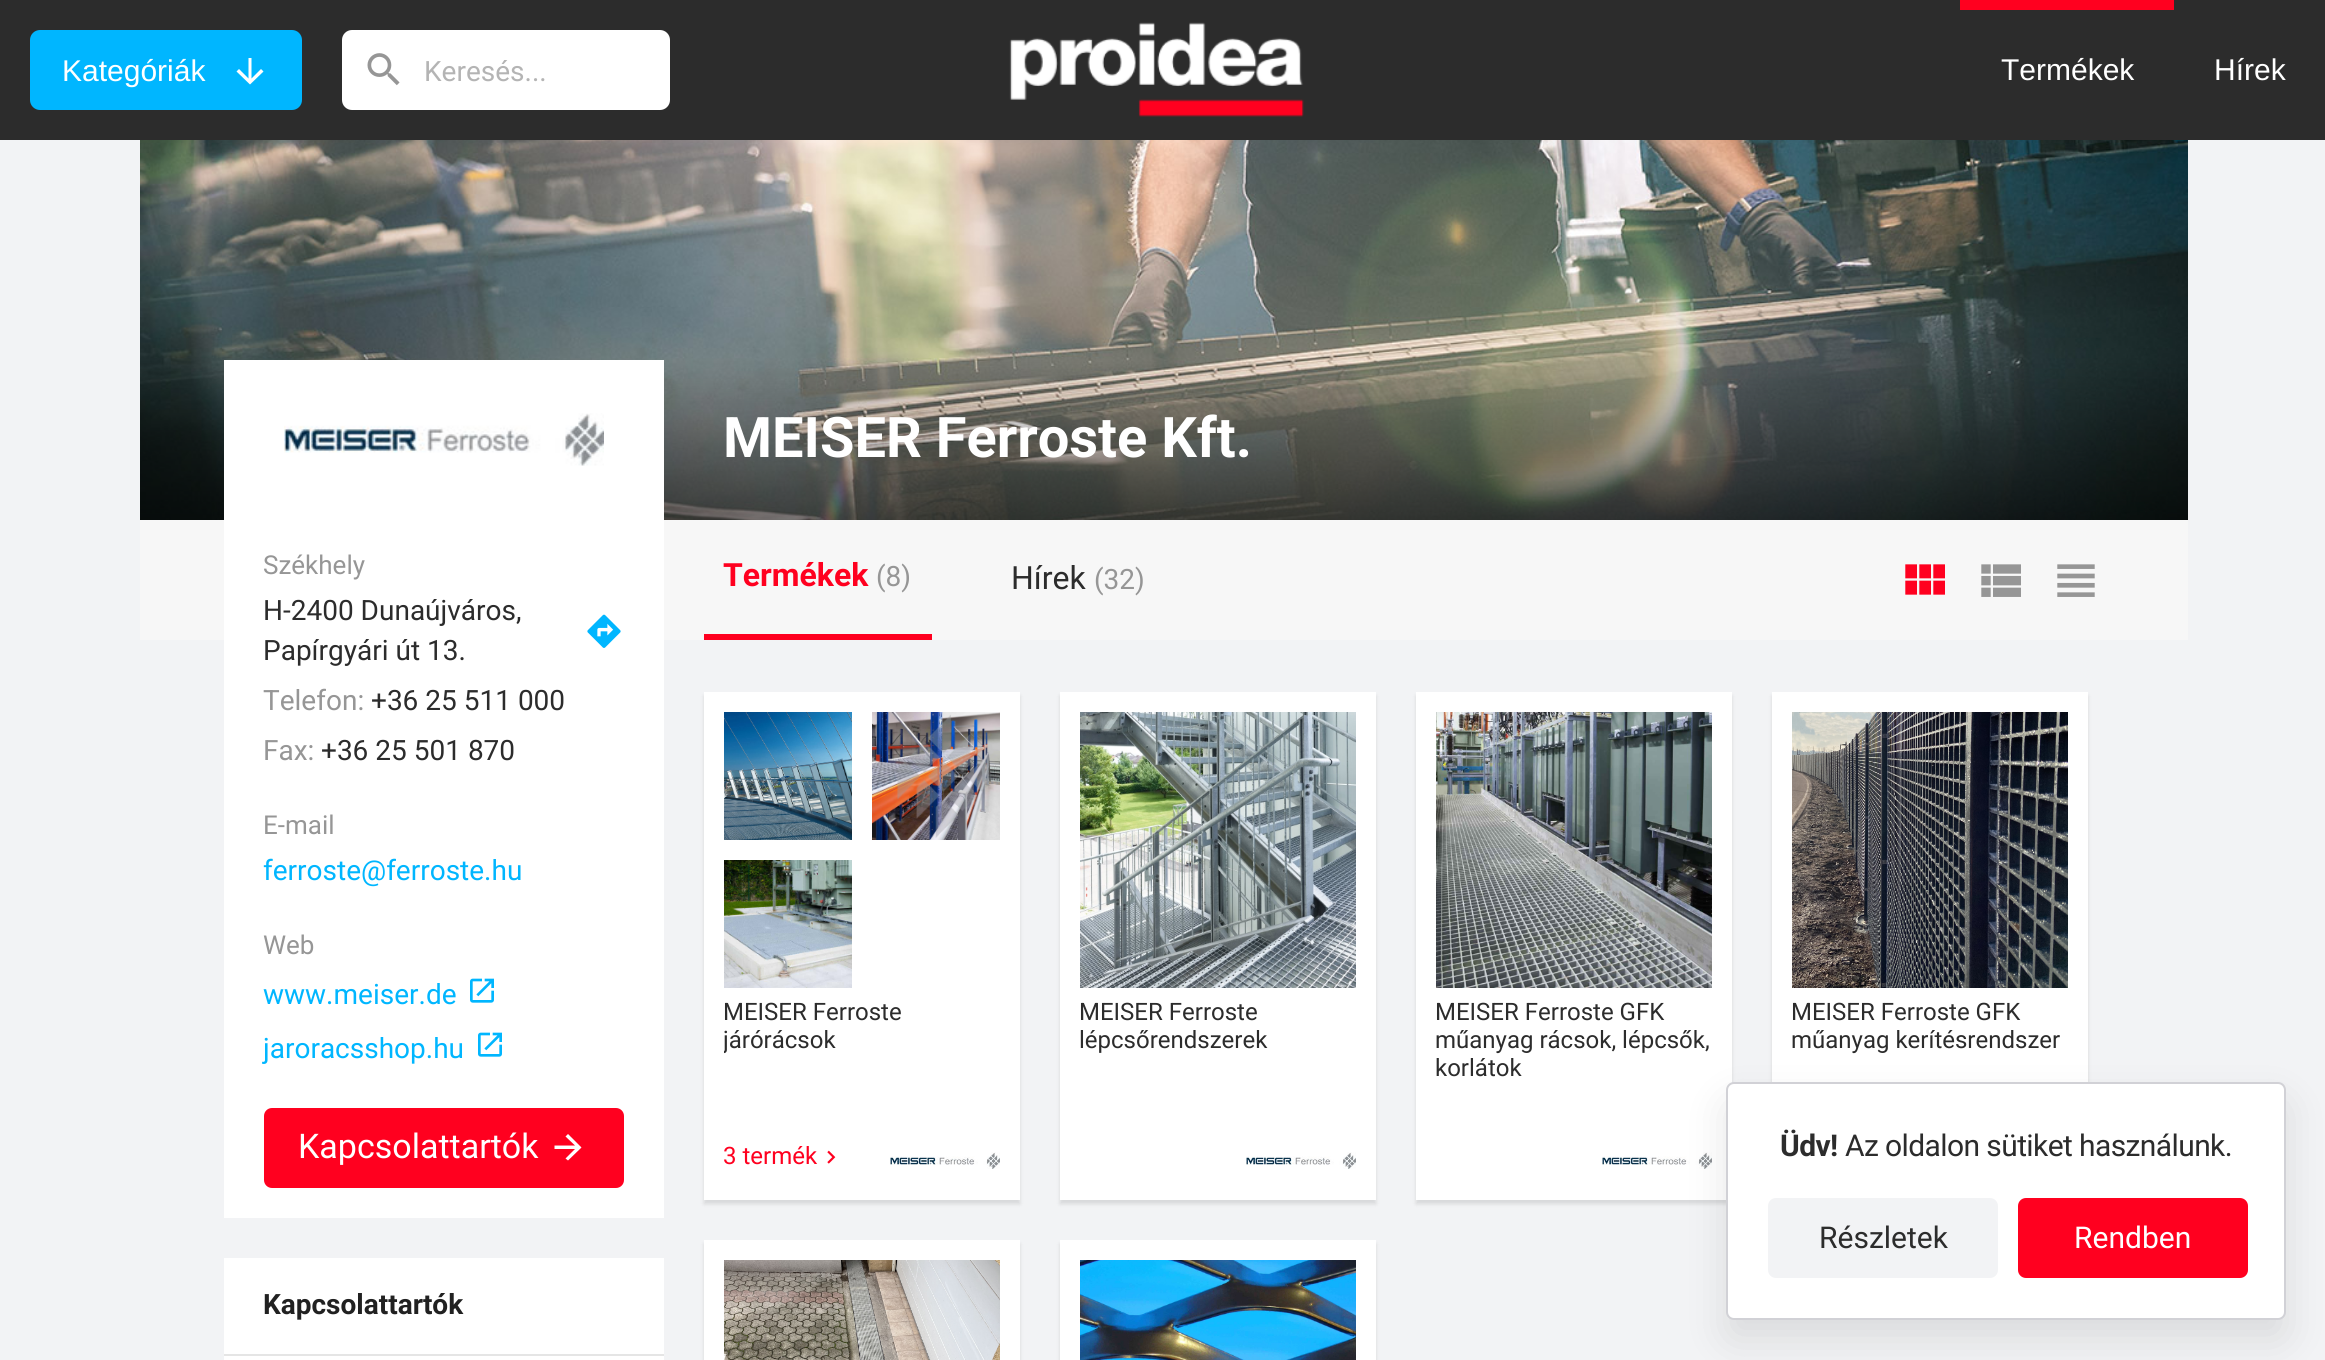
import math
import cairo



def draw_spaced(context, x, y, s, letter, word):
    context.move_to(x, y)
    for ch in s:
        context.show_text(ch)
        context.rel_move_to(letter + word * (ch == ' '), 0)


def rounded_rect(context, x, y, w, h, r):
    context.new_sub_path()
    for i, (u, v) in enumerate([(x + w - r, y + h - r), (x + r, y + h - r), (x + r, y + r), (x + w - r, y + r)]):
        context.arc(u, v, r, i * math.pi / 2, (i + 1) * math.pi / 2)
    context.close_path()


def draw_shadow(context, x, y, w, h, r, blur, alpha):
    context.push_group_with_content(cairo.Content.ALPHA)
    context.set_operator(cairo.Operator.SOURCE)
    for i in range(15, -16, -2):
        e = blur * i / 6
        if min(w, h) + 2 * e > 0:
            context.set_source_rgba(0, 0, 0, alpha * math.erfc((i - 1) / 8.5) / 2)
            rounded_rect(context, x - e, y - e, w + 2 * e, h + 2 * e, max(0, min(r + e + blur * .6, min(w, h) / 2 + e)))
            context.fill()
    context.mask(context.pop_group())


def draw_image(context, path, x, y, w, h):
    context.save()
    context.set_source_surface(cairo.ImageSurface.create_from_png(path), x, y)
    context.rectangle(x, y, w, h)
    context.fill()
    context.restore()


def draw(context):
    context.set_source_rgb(242 / 255, 243 / 255, 245 / 255)
    context.paint()
    context.set_source_rgb(44 / 255, 44 / 255, 44 / 255)
    context.rectangle(0, 0, 2325, 140)
    context.fill()
    context.set_source_rgb(0, 182 / 255, 1)
    rounded_rect(context, 31, 31, 270, 78, 9)
    context.fill_preserve()
    context.stroke()
    context.set_source_rgb(1, 1, 1)
    context.new_path()
    context.move_to(263.5, 71.5)
    context.line_to(250, 84.5)
    context.line_to(236.5, 71.5)
    context.line_to(239, 69)
    context.line_to(248.5, 78.5)
    context.line_to(248.5, 58)
    context.line_to(251.5, 58)
    context.line_to(251.5, 78.5)
    context.line_to(261, 69)
    context.close_path()
    context.fill()
    rounded_rect(context, 343, 31, 326, 78, 9)
    context.fill_preserve()
    context.stroke()
    draw_image(context, "images/1.png", 367, 53, 33, 33)
    draw_image(context, "images/2.png", 1009, 22, 295, 95)
    context.set_source_rgb(1, 0, 31 / 255)
    context.rectangle(1960, 0, 214, 10)
    context.fill()
    draw_image(context, "images/3.png", 140, 140, 2048, 380)
    context.set_source_rgb(247 / 255, 247 / 255, 247 / 255)
    context.rectangle(140, 520, 2048, 120)
    context.fill()
    context.set_source_rgb(1, 1, 1)
    context.rectangle(224, 360, 440, 858)
    context.fill()
    draw_image(context, "images/4.png", 284, 413, 320, 53)
    context.set_source_rgb(1, 0, 31 / 255)
    context.rectangle(704, 634, 228, 6)
    context.fill()
    draw_image(context, "images/5.png", 1905, 564, 40, 31)
    draw_image(context, "images/6.png", 1981, 564, 40, 33)
    draw_image(context, "images/7.png", 2057, 564, 38, 33)
    draw_image(context, "images/8.png", 587, 614, 34, 34)
    draw_image(context, "images/9.png", 470, 978, 24, 25)
    draw_image(context, "images/9.png", 478, 1032, 24, 25)
    rounded_rect(context, 265, 1109, 358, 78, 7)
    context.fill_preserve()
    context.stroke()
    context.set_source_rgb(1, 1, 1)
    context.new_path()
    context.move_to(568, 1134)
    context.line_to(581.5, 1147.5)
    context.line_to(568, 1160.5)
    context.line_to(565.5, 1158.5)
    context.line_to(575, 1149)
    context.line_to(554.5, 1149)
    context.line_to(554.5, 1145.5)
    context.line_to(575, 1145.5)
    context.line_to(565.5, 1136.5)
    context.close_path()
    context.fill()
    context.rectangle(224, 1258, 440, 102)
    context.fill()
    context.set_source_rgb(229 / 255, 229 / 255, 229 / 255)
    context.rectangle(224, 1354, 440, 2)
    context.fill()
    context.set_source_rgb(0, 0, 0)
    draw_shadow(context, 704, 696, 316, 508, 0, 2, 0.11)
    context.set_source_rgb(1, 1, 1)
    context.rectangle(704, 692, 316, 508)
    context.fill()
    draw_image(context, "images/10.png", 724, 712, 128, 128)
    draw_image(context, "images/11.png", 872, 712, 128, 128)
    draw_image(context, "images/12.png", 724, 860, 128, 128)
    draw_image(context, "images/13.png", 827, 1150, 9, 14)
    draw_image(context, "images/14.png", 890, 1152, 110, 17)
    context.set_source_rgb(0, 0, 0)
    draw_shadow(context, 1060, 696, 316, 508, 0, 2, 0.11)
    context.set_source_rgb(1, 1, 1)
    context.rectangle(1060, 692, 316, 508)
    context.fill()
    draw_image(context, "images/15.png", 1080, 712, 276, 276)
    draw_image(context, "images/14.png", 1246, 1152, 110, 17)
    context.set_source_rgb(0, 0, 0)
    draw_shadow(context, 1416, 696, 316, 508, 0, 2, 0.11)
    context.set_source_rgb(1, 1, 1)
    context.rectangle(1416, 692, 316, 508)
    context.fill()
    draw_image(context, "images/16.png", 1436, 712, 276, 276)
    draw_image(context, "images/14.png", 1602, 1152, 110, 17)
    context.set_source_rgb(0, 0, 0)
    draw_shadow(context, 1772, 696, 316, 508, 0, 2, 0.11)
    context.set_source_rgb(1, 1, 1)
    context.rectangle(1772, 692, 316, 390)
    context.fill()
    draw_image(context, "images/17.png", 1792, 712, 276, 276)
    context.set_source_rgb(0, 0, 0)
    draw_shadow(context, 704, 1244, 316, 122, 0, 2, 0.11)
    context.set_source_rgb(1, 1, 1)
    context.rectangle(704, 1240, 316, 120)
    context.fill()
    draw_image(context, "images/18.png", 724, 1260, 276, 100)
    context.set_source_rgb(0, 0, 0)
    draw_shadow(context, 1060, 1244, 316, 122, 0, 2, 0.11)
    context.set_source_rgb(1, 1, 1)
    context.rectangle(1060, 1240, 316, 120)
    context.fill()
    draw_image(context, "images/19.png", 1080, 1260, 276, 100)
    context.set_source_rgb(0, 0, 0)
    draw_shadow(context, 1726, 1102, 560, 238, 8, 20, 0.1)
    context.set_source_rgb(1, 1, 1)
    rounded_rect(context, 1727, 1083, 558, 236, 7)
    context.fill_preserve()
    context.set_source_rgb(209 / 255, 209 / 255, 214 / 255)
    context.stroke()
    context.set_source_rgb(242 / 255, 243 / 255, 245 / 255)
    rounded_rect(context, 1768, 1198, 230, 80, 8)
    context.fill()
    context.set_source_rgb(1, 0, 31 / 255)
    rounded_rect(context, 2018, 1198, 230, 80, 8)
    context.fill()
    context.select_font_face("Liberation Sans")
    context.set_font_size(30)
    context.set_source_rgb(1, 1, 1)
    context.move_to(62, 81)
    context.show_text("Kategóriák")
    context.select_font_face("Roboto")
    context.set_font_size(28)
    context.set_source_rgb(180 / 255, 180 / 255, 180 / 255)
    context.move_to(424, 81)
    context.show_text("Keresés...")
    context.select_font_face("Liberation Sans")
    context.set_font_size(30)
    context.set_source_rgb(1, 1, 1)
    context.move_to(2001, 80)
    context.show_text("Termékek")
    context.move_to(2214, 80)
    context.show_text("Hírek")
    context.select_font_face("Roboto", cairo.FontSlant.NORMAL, cairo.FontWeight.BOLD)
    context.set_font_size(56)
    context.move_to(723, 457)
    context.show_text("MEISER Ferroste Kft.")
    context.set_font_size(32)
    context.set_source_rgb(1, 0, 31 / 255)
    context.move_to(723, 586)
    context.show_text("Termékek")
    context.select_font_face("Roboto")
    context.set_font_size(28)
    context.set_source_rgb(150 / 255, 150 / 255, 150 / 255)
    context.move_to(876, 586)
    context.show_text("(8)")
    context.set_font_size(32)
    context.set_source_rgb(44 / 255, 44 / 255, 44 / 255)
    context.move_to(1011, 589)
    context.show_text("Hírek")
    context.set_font_size(28)
    context.set_source_rgb(150 / 255, 150 / 255, 150 / 255)
    context.move_to(1094, 589)
    context.show_text("(32)")
    context.set_font_size(26)
    context.move_to(263, 574)
    context.show_text("Székhely")
    context.set_font_size(28)
    context.set_source_rgb(44 / 255, 44 / 255, 44 / 255)
    context.move_to(263, 620)
    context.show_text("H-2400 Dunaújváros,")
    context.move_to(263, 660)
    context.show_text("Papírgyári út 13.")
    context.set_source_rgb(150 / 255, 150 / 255, 150 / 255)
    context.move_to(263, 710)
    context.show_text("Telefon:")
    context.set_source_rgb(44 / 255, 44 / 255, 44 / 255)
    context.move_to(371, 710)
    context.show_text("+36 25 511 000")
    context.set_source_rgb(150 / 255, 150 / 255, 150 / 255)
    context.move_to(263, 760)
    context.show_text("Fax:")
    context.set_source_rgb(44 / 255, 44 / 255, 44 / 255)
    context.move_to(321, 760)
    context.show_text("+36 25 501 870")
    context.set_font_size(26)
    context.set_source_rgb(150 / 255, 150 / 255, 150 / 255)
    context.move_to(263, 834)
    context.show_text("E-mail")
    context.set_font_size(28)
    context.set_source_rgb(0, 182 / 255, 1)
    context.move_to(263, 880)
    context.show_text("ferroste@ferroste.hu")
    context.set_font_size(26)
    context.set_source_rgb(150 / 255, 150 / 255, 150 / 255)
    context.move_to(263, 954)
    context.show_text("Web")
    context.set_font_size(28)
    context.set_source_rgb(0, 182 / 255, 1)
    context.move_to(263, 1004)
    context.show_text("www.meiser.de")
    context.move_to(263, 1058)
    context.show_text("jaroracsshop.hu")
    context.set_font_size(34)
    context.set_source_rgb(1, 1, 1)
    context.move_to(298, 1158)
    context.show_text("Kapcsolattartók")
    context.select_font_face("Roboto", cairo.FontSlant.NORMAL, cairo.FontWeight.BOLD)
    context.set_font_size(28)
    context.set_source_rgb(33 / 255, 33 / 255, 33 / 255)
    context.move_to(263, 1314)
    context.show_text("Kapcsolattartók")
    context.select_font_face("Roboto")
    context.set_font_size(24)
    context.set_source_rgb(44 / 255, 44 / 255, 44 / 255)
    context.move_to(723, 1020)
    context.show_text("MEISER Ferroste")
    context.save()
    context.rectangle(724, 998, 276, 112)
    context.clip()
    context.move_to(723, 1048)
    context.show_text("járórácsok")
    context.restore()
    context.set_source_rgb(1, 0, 31 / 255)
    context.move_to(723, 1164)
    context.show_text("3 termék")
    context.set_source_rgb(44 / 255, 44 / 255, 44 / 255)
    context.move_to(1079, 1020)
    context.show_text("MEISER Ferroste")
    context.move_to(1079, 1048)
    context.show_text("lépcsőrendszerek")
    context.move_to(1435, 1020)
    context.show_text("MEISER Ferroste GFK")
    context.move_to(1435, 1048)
    context.show_text("műanyag rácsok, lépcsők,")
    context.move_to(1435, 1076)
    context.show_text("korlátok")
    context.move_to(1791, 1020)
    context.show_text("MEISER Ferroste GFK")
    context.move_to(1791, 1048)
    context.show_text("műanyag kerítésrendszer")
    context.select_font_face("Roboto", cairo.FontSlant.NORMAL, cairo.FontWeight.BOLD)
    context.set_font_size(30)
    draw_spaced(context, 1780, 1156, "Üdv!", -0.6, 0)
    context.select_font_face("Roboto")
    draw_spaced(context, 1845, 1156, "Az oldalon sütiket használunk.", -0.6, 0)
    context.move_to(1819, 1248)
    context.show_text("Részletek")
    context.set_source_rgb(1, 1, 1)
    context.move_to(2074, 1248)
    context.show_text("Rendben")


surface = cairo.ImageSurface(cairo.Format.RGB24, 2325, 1360)
context = cairo.Context(surface)
options = cairo.FontOptions()
options.set_hint_metrics(cairo.HintMetrics.OFF)
options.set_hint_style(cairo.HintStyle.NONE)
context.set_font_options(options)
context.set_miter_limit(4)
draw(context)
surface.write_to_png("out.png")
